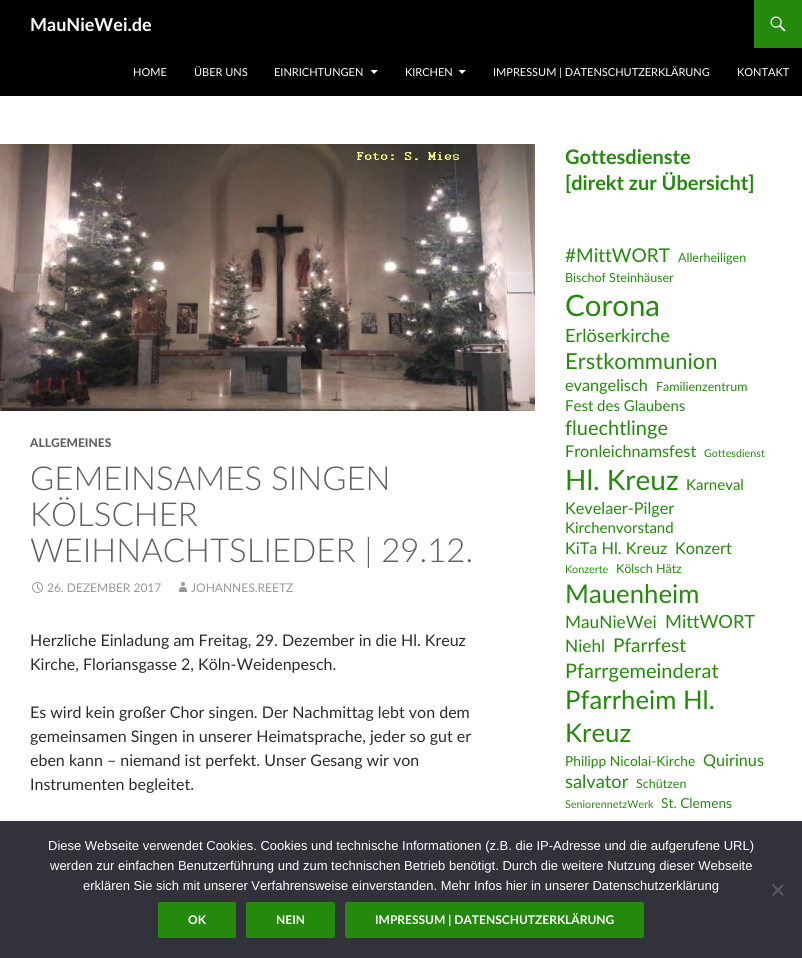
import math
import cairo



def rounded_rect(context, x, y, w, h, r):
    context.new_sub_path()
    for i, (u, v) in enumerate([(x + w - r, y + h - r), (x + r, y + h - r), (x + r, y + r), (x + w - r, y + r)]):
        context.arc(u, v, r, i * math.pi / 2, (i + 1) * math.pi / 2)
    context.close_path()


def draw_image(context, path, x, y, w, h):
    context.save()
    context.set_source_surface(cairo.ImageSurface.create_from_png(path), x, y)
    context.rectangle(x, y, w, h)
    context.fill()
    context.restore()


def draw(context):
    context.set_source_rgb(1, 1, 1)
    context.paint()
    context.set_source_rgb(0, 0, 0)
    context.rectangle(0, 0, 802, 96)
    context.fill()
    context.set_source_rgb(36 / 255, 137 / 255, 13 / 255)
    context.rectangle(754, 0, 48, 48)
    context.fill()
    draw_image(context, "images/1.png", 770, 16, 16, 16)
    context.set_source_rgb(1, 1, 1)
    context.new_path()
    context.move_to(370.5, 70)
    context.line_to(374, 74)
    context.line_to(378, 70)
    context.close_path()
    context.fill()
    context.new_path()
    context.move_to(458.5, 70)
    context.line_to(462, 74)
    context.line_to(466, 70)
    context.close_path()
    context.fill()
    draw_image(context, "images/2.png", 0, 144, 535, 267)
    draw_image(context, "images/3.png", 32, 582, 11, 11)
    draw_image(context, "images/4.png", 179, 582, 8, 10)
    context.set_source_rgb(50 / 255, 50 / 255, 58 / 255)
    context.rectangle(0, 821, 802, 137)
    context.fill()
    context.set_source_rgb(89 / 255, 89 / 255, 93 / 255)
    context.new_path()
    context.move_to(782.5, 884)
    context.line_to(784, 885.5)
    context.line_to(773.5, 896)
    context.line_to(772, 894.5)
    context.close_path()
    context.fill()
    context.new_path()
    context.move_to(772, 885.5)
    context.line_to(773.5, 884)
    context.line_to(784, 894.5)
    context.line_to(782.5, 896)
    context.close_path()
    context.fill()
    context.set_source_rgb(36 / 255, 137 / 255, 13 / 255)
    rounded_rect(context, 158, 902, 78, 36, 2)
    context.fill()
    rounded_rect(context, 246, 902, 89, 36, 2)
    context.fill()
    rounded_rect(context, 345, 902, 299, 36, 2)
    context.fill()
    context.select_font_face("Lato", cairo.FontSlant.NORMAL, cairo.FontWeight.BOLD)
    context.set_font_size(18)
    context.set_source_rgb(1, 1, 1)
    context.move_to(30, 31)
    context.show_text("MauNieWei.de")
    context.select_font_face("Lato")
    context.set_font_size(11)
    context.move_to(133, 76)
    context.show_text("HOME")
    context.move_to(194, 76)
    context.show_text("ÜBER UNS")
    context.move_to(274, 76)
    context.show_text("EINRICHTUNGEN")
    context.move_to(405, 76)
    context.show_text("KIRCHEN")
    context.move_to(493, 76)
    context.show_text("IMPRESSUM | DATENSCHUTZERKLÄRUNG")
    context.move_to(737, 76)
    context.show_text("KONTAKT")
    context.select_font_face("Lato Black")
    context.set_font_size(12)
    context.set_source_rgb(96 / 255, 96 / 255, 96 / 255)
    context.move_to(30, 447)
    context.show_text("ALLGEMEINES")
    context.select_font_face("Lato Light")
    context.set_font_size(33)
    context.move_to(30, 490)
    context.show_text("GEMEINSAMES SINGEN")
    context.move_to(30, 526)
    context.show_text("KÖLSCHER")
    context.move_to(30, 562)
    context.show_text("WEIHNACHTSLIEDER | 29.12.")
    context.select_font_face("Lato")
    context.set_font_size(12)
    context.set_source_rgb(152 / 255, 152 / 255, 152 / 255)
    context.move_to(47, 592)
    context.show_text("26. DEZEMBER 2017")
    context.move_to(191, 592)
    context.show_text("JOHANNES.REETZ")
    context.set_font_size(16)
    context.set_source_rgb(43 / 255, 43 / 255, 43 / 255)
    context.move_to(30, 646)
    context.show_text("Herzliche Einladung am Freitag, 29. Dezember in die Hl. Kreuz")
    context.move_to(30, 670)
    context.show_text("Kirche, Floriansgasse 2, Köln-Weidenpesch.")
    context.move_to(30, 718)
    context.show_text("Es wird kein großer Chor singen. Der Nachmittag lebt von dem")
    context.move_to(30, 742)
    context.show_text("gemeinsamen Singen in unserer Heimatsprache, jeder so gut er")
    context.move_to(30, 766)
    context.show_text("eben kann – niemand ist perfekt. Unser Gesang wir von")
    context.move_to(30, 790)
    context.show_text("Instrumenten begleitet.")
    context.select_font_face("Lato", cairo.FontSlant.NORMAL, cairo.FontWeight.BOLD)
    context.set_font_size(20)
    context.set_source_rgb(36 / 255, 137 / 255, 13 / 255)
    context.move_to(565, 164)
    context.show_text("Gottesdienste")
    context.move_to(565, 190)
    context.show_text("[direkt zur Übersicht]")
    context.select_font_face("Lato")
    context.set_font_size(19)
    context.move_to(565, 262)
    context.show_text("#MittWORT")
    context.set_font_size(12.5)
    context.move_to(678, 262)
    context.show_text("Allerheiligen")
    context.move_to(565, 282)
    context.show_text("Bischof Steinhäuser")
    context.set_font_size(29.5)
    context.move_to(565, 316)
    context.show_text("Corona")
    context.set_font_size(18.25)
    context.move_to(565, 342)
    context.show_text("Erlöserkirche")
    context.set_font_size(22)
    context.move_to(565, 369)
    context.show_text("Erstkommunion")
    context.set_font_size(16.25)
    context.move_to(565, 391)
    context.show_text("evangelisch")
    context.set_font_size(12.5)
    context.move_to(656, 391)
    context.show_text("Familienzentrum")
    context.set_font_size(15)
    context.move_to(565, 411)
    context.show_text("Fest des Glaubens")
    context.set_font_size(20)
    context.move_to(565, 435)
    context.show_text("fluechtlinge")
    context.set_font_size(16.25)
    context.move_to(565, 457)
    context.show_text("Fronleichnamsfest")
    context.set_font_size(10.75)
    context.move_to(704, 457)
    context.show_text("Gottesdienst")
    context.set_font_size(28)
    context.move_to(565, 490)
    context.show_text("Hl. Kreuz")
    context.set_font_size(15)
    context.move_to(686, 490)
    context.show_text("Karneval")
    context.set_font_size(16.25)
    context.move_to(565, 514)
    context.show_text("Kevelaer-Pilger")
    context.set_font_size(15)
    context.move_to(565, 533)
    context.show_text("Kirchenvorstand")
    context.set_font_size(16.25)
    context.move_to(565, 554)
    context.show_text("KiTa Hl. Kreuz")
    context.move_to(675, 554)
    context.show_text("Konzert")
    context.set_font_size(10.75)
    context.move_to(565, 573)
    context.show_text("Konzerte")
    context.set_font_size(12.5)
    context.move_to(616, 573)
    context.show_text("Kölsch Hätz")
    context.set_font_size(25.75)
    context.move_to(565, 603)
    context.show_text("Mauenheim")
    context.set_font_size(17.25)
    context.move_to(565, 628)
    context.show_text("MauNieWei")
    context.set_font_size(18.25)
    context.move_to(665, 628)
    context.show_text("MittWORT")
    context.set_font_size(17.25)
    context.move_to(565, 652)
    context.show_text("Niehl")
    context.set_font_size(19)
    context.move_to(613, 652)
    context.show_text("Pfarrfest")
    context.set_font_size(20)
    context.move_to(565, 678)
    context.show_text("Pfarrgemeinderat")
    context.set_font_size(25.75)
    context.move_to(565, 709)
    context.show_text("Pfarrheim Hl.")
    context.move_to(565, 742)
    context.show_text("Kreuz")
    context.set_font_size(13.75)
    context.move_to(565, 766)
    context.show_text("Philipp Nicolai-Kirche")
    context.set_font_size(16.25)
    context.move_to(703, 766)
    context.show_text("Quirinus")
    context.set_font_size(18.25)
    context.move_to(565, 788)
    context.show_text("salvator")
    context.set_font_size(12.5)
    context.move_to(636, 788)
    context.show_text("Schützen")
    context.set_font_size(10.75)
    context.move_to(565, 808)
    context.show_text("SeniorennetzWerk")
    context.set_font_size(13.75)
    context.move_to(661, 808)
    context.show_text("St. Clemens")
    context.select_font_face("Liberation Sans")
    context.set_font_size(13)
    context.set_source_rgb(1, 1, 1)
    context.move_to(48, 850)
    context.show_text("Diese Webseite verwendet Cookies. Cookies und technische Informationen (z.B. die IP-Adresse und die aufgerufene URL)")
    context.move_to(50, 870)
    context.show_text("werden zur einfachen Benutzerführung und zum technischen Betrieb benötigt. Durch die weitere Nutzung dieser Webseite")
    context.move_to(83, 890)
    context.show_text("erklären Sie sich mit unserer Verfahrensweise einverstanden. Mehr Infos hier in unserer Datenschutzerklärung")
    context.select_font_face("Lato", cairo.FontSlant.NORMAL, cairo.FontWeight.BOLD)
    context.set_font_size(12)
    context.move_to(188, 924)
    context.show_text("OK")
    context.move_to(276, 924)
    context.show_text("NEIN")
    context.move_to(375, 924)
    context.show_text("IMPRESSUM | DATENSCHUTZERKLÄRUNG")


surface = cairo.ImageSurface(cairo.Format.RGB24, 802, 958)
context = cairo.Context(surface)
options = cairo.FontOptions()
options.set_hint_metrics(cairo.HintMetrics.OFF)
options.set_hint_style(cairo.HintStyle.NONE)
context.set_font_options(options)
context.set_miter_limit(4)
draw(context)
surface.write_to_png("out.png")
